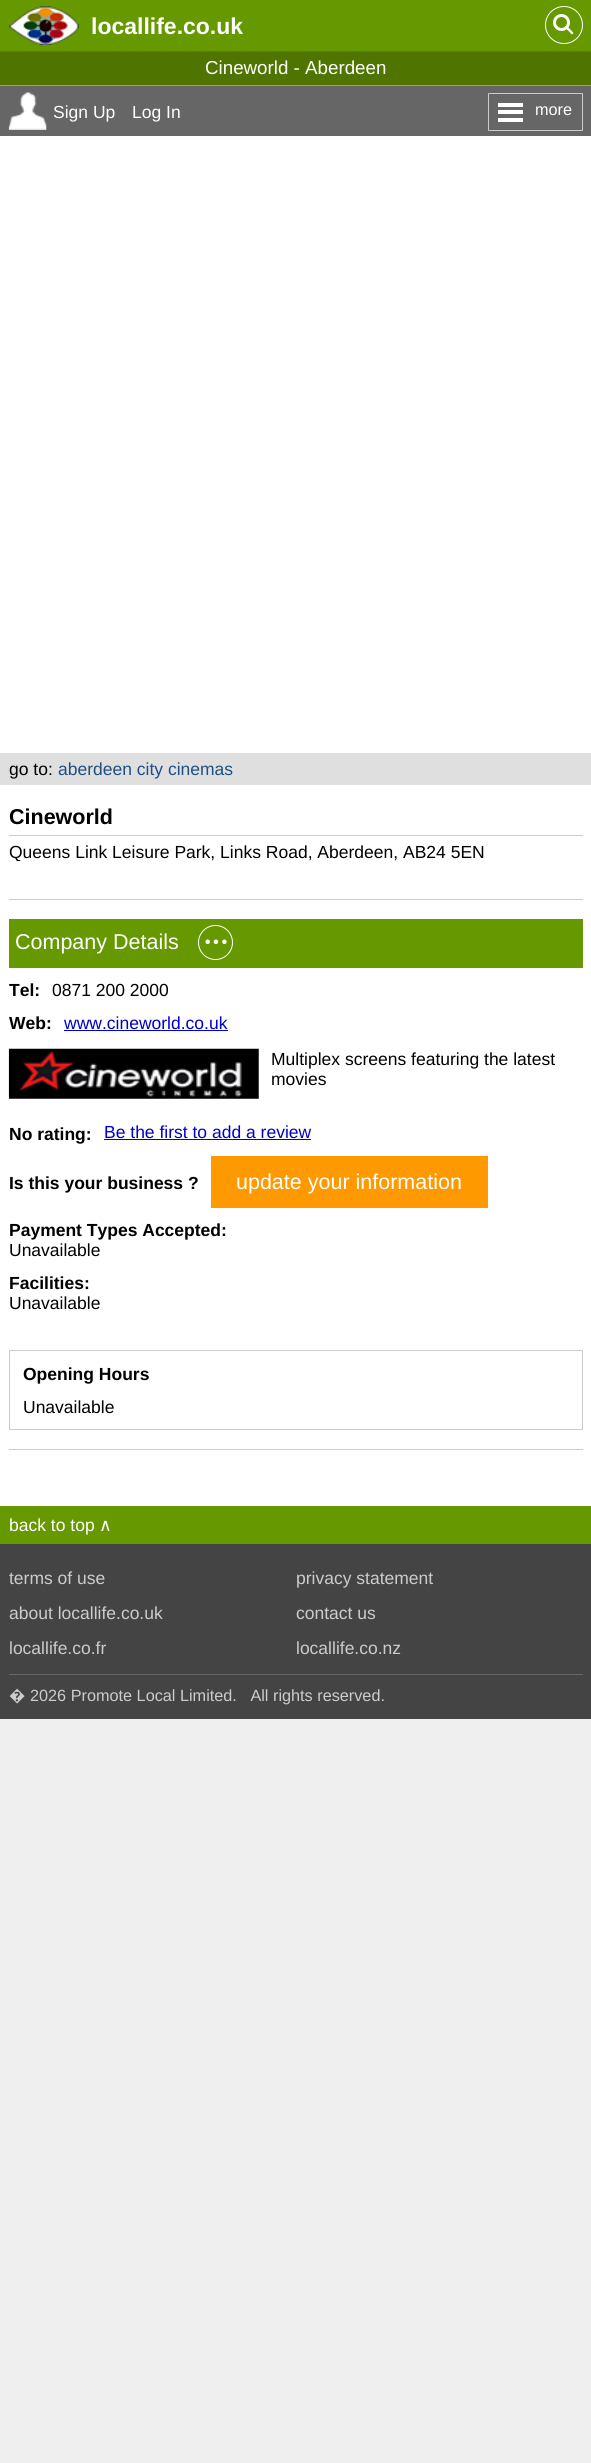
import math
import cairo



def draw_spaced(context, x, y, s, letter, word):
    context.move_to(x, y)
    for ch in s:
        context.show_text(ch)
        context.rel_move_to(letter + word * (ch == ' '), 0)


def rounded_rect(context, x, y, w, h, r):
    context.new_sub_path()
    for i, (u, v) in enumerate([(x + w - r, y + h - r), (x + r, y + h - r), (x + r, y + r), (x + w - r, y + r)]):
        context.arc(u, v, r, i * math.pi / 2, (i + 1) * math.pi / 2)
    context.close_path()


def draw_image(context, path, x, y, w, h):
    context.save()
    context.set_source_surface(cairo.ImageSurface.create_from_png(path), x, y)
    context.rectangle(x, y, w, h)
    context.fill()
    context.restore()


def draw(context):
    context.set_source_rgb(239 / 255, 239 / 255, 239 / 255)
    context.paint()
    context.set_source_rgb(1, 1, 1)
    context.rectangle(0, 136, 591, 1370)
    context.fill()
    context.set_source_rgb(102 / 255, 153 / 255, 0)
    context.rectangle(0, 0, 591, 51)
    context.fill()
    draw_image(context, "images/1.png", 8, 6, 71, 39)
    context.arc(564, 25, 18.5, 0, 2 * math.pi)
    context.set_source_rgb(1, 1, 1)
    context.set_line_width(1)
    context.stroke()
    context.arc(561.5, 22.5, 7, 0, 2 * math.pi)
    context.set_line_width(3)
    context.stroke()
    context.new_path()
    context.move_to(566.5, 25.5)
    context.line_to(573.5, 33)
    context.line_to(572, 34.5)
    context.line_to(564.5, 27)
    context.close_path()
    context.fill()
    context.set_source_rgb(79 / 255, 117 / 255, 0)
    context.rectangle(0, 52, 591, 33)
    context.fill()
    context.set_source_rgb(102 / 255, 102 / 255, 102 / 255)
    context.rectangle(0, 51, 591, 1)
    context.fill()
    context.set_source_rgb(153 / 255, 153 / 255, 153 / 255)
    context.rectangle(0, 85, 591, 1)
    context.fill()
    context.set_source_rgb(102 / 255, 102 / 255, 102 / 255)
    context.rectangle(0, 86, 591, 50)
    context.fill()
    draw_image(context, "images/2.png", 8, 92, 39, 38)
    rounded_rect(context, 488.5, 93.5, 94, 37, 0.5)
    context.set_source_rgb(204 / 255, 204 / 255, 204 / 255)
    context.set_line_width(1)
    context.stroke()
    context.set_source_rgb(1, 1, 1)
    context.rectangle(498, 103, 25, 4)
    context.fill()
    context.rectangle(498, 110, 25, 4)
    context.fill()
    context.rectangle(498, 118, 25, 4)
    context.fill()
    context.set_source_rgb(223 / 255, 223 / 255, 223 / 255)
    context.rectangle(0, 753, 591, 32)
    context.fill()
    context.set_source_rgb(204 / 255, 204 / 255, 204 / 255)
    context.rectangle(9, 835, 574, 1)
    context.fill()
    context.rectangle(9, 899, 574, 1)
    context.fill()
    context.set_source_rgb(102 / 255, 153 / 255, 0)
    context.rectangle(9, 919, 574, 49)
    context.fill()
    context.arc(215.5, 942.5, 17, 0, 2 * math.pi)
    context.set_source_rgb(1, 1, 1)
    context.stroke()
    context.set_source_rgb(0, 0, 204 / 255)
    context.rectangle(64, 1030, 164, 1)
    context.fill()
    draw_image(context, "images/3.png", 8, 1048, 251, 51)
    context.rectangle(104, 1139, 207, 1)
    context.fill()
    context.set_source_rgb(1, 153 / 255, 0)
    context.rectangle(211, 1156, 277, 52)
    context.fill()
    context.rectangle(9.5, 1350.5, 573, 79)
    context.set_source_rgb(204 / 255, 204 / 255, 204 / 255)
    context.stroke()
    context.rectangle(9, 1449, 574, 1)
    context.fill()
    context.set_source_rgb(102 / 255, 153 / 255, 0)
    context.rectangle(0, 1506, 591, 38)
    context.fill()
    context.set_source_rgb(68 / 255, 68 / 255, 68 / 255)
    context.rectangle(0, 1544, 591, 175)
    context.fill()
    context.set_source_rgb(102 / 255, 102 / 255, 102 / 255)
    context.rectangle(9, 1674, 574, 1)
    context.fill()
    context.select_font_face("Liberation Sans", cairo.FontSlant.NORMAL, cairo.FontWeight.BOLD)
    context.set_font_size(23)
    context.set_source_rgb(1, 1, 1)
    context.move_to(91, 34)
    context.show_text("locallife.co.uk")
    context.select_font_face("Liberation Sans")
    context.set_font_size(18.75)
    context.move_to(205, 74)
    context.show_text("Cineworld - Aberdeen")
    context.set_font_size(17.5)
    context.move_to(53, 118)
    context.show_text("Sign Up")
    context.move_to(132, 118)
    context.show_text("Log In")
    context.set_font_size(16.25)
    context.move_to(535, 115)
    context.show_text("more")
    context.set_font_size(17.5)
    context.set_source_rgb(0, 0, 0)
    context.move_to(9, 775)
    context.show_text("go to:")
    context.set_source_rgb(31 / 255, 79 / 255, 130 / 255)
    context.move_to(58, 775)
    context.show_text("aberdeen city cinemas")
    context.select_font_face("Liberation Sans", cairo.FontSlant.NORMAL, cairo.FontWeight.BOLD)
    context.set_font_size(21.5)
    context.set_source_rgb(0, 0, 0)
    context.move_to(9, 824)
    context.show_text("Cineworld")
    context.save()
    context.rectangle(9, 798, 574, 63)
    context.clip()
    context.select_font_face("Liberation Sans")
    context.set_font_size(17.5)
    context.move_to(9, 858)
    context.show_text("Queens Link Leisure Park, Links Road, Aberdeen, AB24 5EN")
    context.restore()
    context.select_font_face("Liberation Sans")
    context.set_source_rgb(1, 1, 1)
    context.move_to(15, 949)
    context.show_text("Company Details")
    context.select_font_face("Liberation Serif", cairo.FontSlant.NORMAL, cairo.FontWeight.BOLD)
    context.set_font_size(28)
    draw_spaced(context, 203, 951, "···", -1, 0)
    context.select_font_face("Liberation Sans", cairo.FontSlant.NORMAL, cairo.FontWeight.BOLD)
    context.set_font_size(17.5)
    context.set_source_rgb(0, 0, 0)
    context.move_to(9, 996)
    context.show_text("Tel:")
    context.select_font_face("Liberation Sans")
    context.move_to(52, 996)
    context.show_text("0871 200 2000")
    context.select_font_face("Liberation Sans", cairo.FontSlant.NORMAL, cairo.FontWeight.BOLD)
    context.move_to(9, 1029)
    context.show_text("Web:")
    context.select_font_face("Liberation Sans")
    context.set_source_rgb(0, 0, 204 / 255)
    context.move_to(64, 1029)
    context.show_text("www.cineworld.co.uk")
    context.set_source_rgb(0, 0, 0)
    context.move_to(271, 1065)
    context.show_text("Multiplex screens featuring the latest")
    context.move_to(271, 1085)
    context.show_text("movies")
    context.select_font_face("Liberation Sans", cairo.FontSlant.NORMAL, cairo.FontWeight.BOLD)
    context.move_to(9, 1140)
    context.show_text("No rating:")
    context.select_font_face("Liberation Sans")
    context.set_source_rgb(0, 0, 204 / 255)
    context.move_to(104, 1138)
    context.show_text("Be the first to add a review")
    context.select_font_face("Liberation Sans", cairo.FontSlant.NORMAL, cairo.FontWeight.BOLD)
    context.set_source_rgb(0, 0, 0)
    context.move_to(9, 1189)
    context.show_text("Is this your business ?")
    context.select_font_face("Liberation Sans")
    context.set_font_size(21.5)
    context.set_source_rgb(1, 1, 1)
    context.move_to(236, 1189)
    context.show_text("update your information")
    context.select_font_face("Liberation Sans", cairo.FontSlant.NORMAL, cairo.FontWeight.BOLD)
    context.set_font_size(17.5)
    context.set_source_rgb(0, 0, 0)
    context.move_to(9, 1236)
    context.show_text("Payment Types Accepted:")
    context.select_font_face("Liberation Sans")
    context.move_to(9, 1256)
    context.show_text("Unavailable")
    context.select_font_face("Liberation Sans", cairo.FontSlant.NORMAL, cairo.FontWeight.BOLD)
    context.move_to(9, 1289)
    context.show_text("Facilities:")
    context.select_font_face("Liberation Sans")
    context.move_to(9, 1309)
    context.show_text("Unavailable")
    context.select_font_face("Liberation Sans", cairo.FontSlant.NORMAL, cairo.FontWeight.BOLD)
    context.move_to(23, 1380)
    context.show_text("Opening Hours")
    context.select_font_face("Liberation Sans")
    context.move_to(23, 1413)
    context.show_text("Unavailable")
    context.set_source_rgb(1, 1, 1)
    context.move_to(9, 1531)
    context.show_text("back to top")
    context.select_font_face("DejaVu Sans")
    context.move_to(99, 1531)
    context.show_text("∧")
    context.select_font_face("Liberation Sans")
    context.set_source_rgb(204 / 255, 204 / 255, 204 / 255)
    context.move_to(9, 1584)
    context.show_text("terms of use")
    context.move_to(296, 1584)
    context.show_text("privacy statement")
    context.move_to(9, 1619)
    context.show_text("about locallife.co.uk")
    context.move_to(296, 1619)
    context.show_text("contact us")
    context.move_to(9, 1654)
    context.show_text("locallife.co.fr")
    context.move_to(296, 1654)
    context.show_text("locallife.co.nz")
    context.select_font_face("Noto Sans")
    context.set_font_size(16.25)
    context.move_to(9, 1701)
    context.show_text("�")
    context.select_font_face("Liberation Sans")
    context.move_to(30, 1701)
    context.show_text("2026 Promote Local Limited.   All rights reserved.")


surface = cairo.ImageSurface(cairo.Format.RGB24, 591, 2463)
context = cairo.Context(surface)
options = cairo.FontOptions()
options.set_hint_metrics(cairo.HintMetrics.OFF)
options.set_hint_style(cairo.HintStyle.NONE)
context.set_font_options(options)
context.set_miter_limit(4)
draw(context)
surface.write_to_png("out.png")
